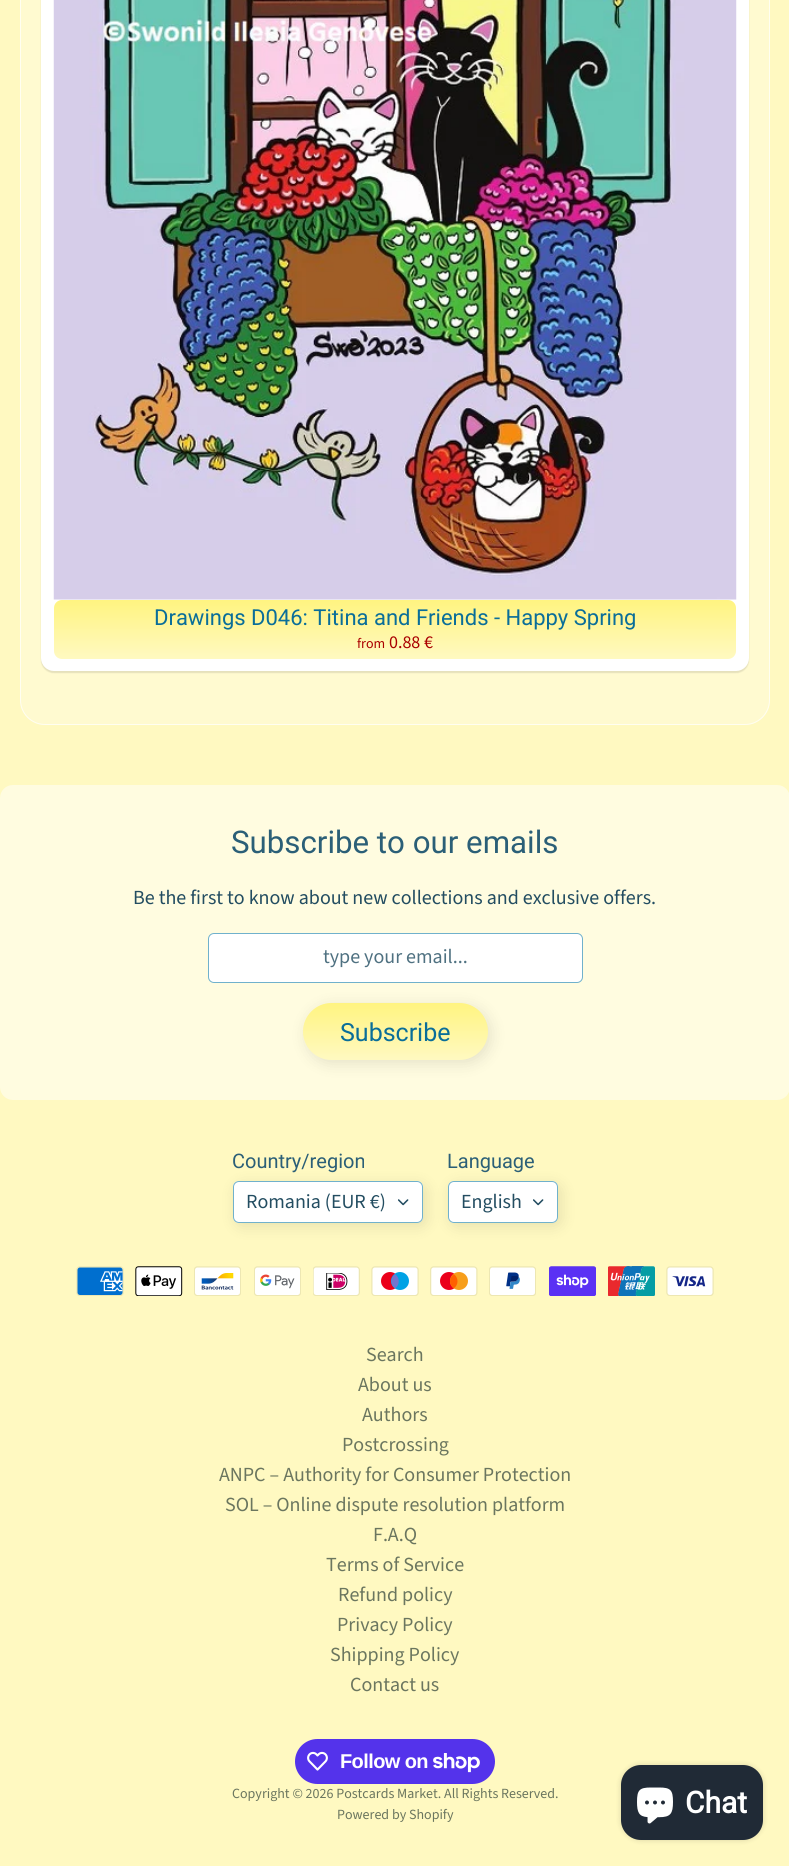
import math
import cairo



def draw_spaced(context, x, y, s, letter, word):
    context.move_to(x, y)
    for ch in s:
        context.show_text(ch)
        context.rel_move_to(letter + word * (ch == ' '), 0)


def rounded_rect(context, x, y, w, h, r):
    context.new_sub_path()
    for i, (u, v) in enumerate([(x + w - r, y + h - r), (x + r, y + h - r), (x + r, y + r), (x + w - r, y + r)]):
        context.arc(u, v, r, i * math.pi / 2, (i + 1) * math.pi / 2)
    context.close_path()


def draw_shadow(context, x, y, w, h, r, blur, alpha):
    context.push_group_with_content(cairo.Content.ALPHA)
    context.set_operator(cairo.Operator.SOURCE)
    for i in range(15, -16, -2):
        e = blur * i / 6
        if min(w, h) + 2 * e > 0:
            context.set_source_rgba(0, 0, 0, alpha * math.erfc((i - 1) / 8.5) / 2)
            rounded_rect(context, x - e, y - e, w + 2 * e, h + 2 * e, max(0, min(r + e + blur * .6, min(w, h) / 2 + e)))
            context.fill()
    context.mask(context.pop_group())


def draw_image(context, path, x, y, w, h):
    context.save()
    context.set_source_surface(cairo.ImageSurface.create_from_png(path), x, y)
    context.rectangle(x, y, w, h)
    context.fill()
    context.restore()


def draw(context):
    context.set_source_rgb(1, 249 / 255, 193 / 255)
    context.paint()
    context.set_source_rgb(1, 250 / 255, 208 / 255)
    rounded_rect(context, 20, -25, 750, 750, 25)
    context.fill()
    rounded_rect(context, 20.5, -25.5, 749, 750, 24.5)
    context.set_source_rgba(1, 1, 1, 0.7)
    context.set_line_width(1)
    context.stroke()
    context.set_source_rgb(0, 0, 0)
    draw_shadow(context, 41, -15, 708, 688, 13, 0.5, 0.1)
    context.set_source_rgb(1, 1, 1)
    rounded_rect(context, 41, -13, 708, 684, 13)
    context.fill()
    draw_image(context, "images/1.png", 53, 0, 684, 600)
    gradient = cairo.LinearGradient(395, 600, 395, 659)
    gradient.add_color_stop_rgba(0, 1, 244 / 255, 128 / 255, 1)
    gradient.add_color_stop_rgba(1, 1, 249 / 255, 193 / 255, 1)
    context.set_source(gradient)
    rounded_rect(context, 54, 600, 682, 59, 8)
    context.fill()
    context.set_source_rgb(1, 252 / 255, 224 / 255)
    rounded_rect(context, 0, 785, 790, 315, 13)
    context.fill()
    context.set_source_rgb(1, 1, 1)
    rounded_rect(context, 208.5, 933.5, 374, 49, 5.5)
    context.fill_preserve()
    context.set_source_rgb(112 / 255, 177 / 255, 204 / 255)
    context.stroke()
    context.set_source_rgb(0, 0, 0)
    draw_shadow(context, 306, 1006, 185, 58, 29, 7.5, 0.1)
    gradient = cairo.LinearGradient(395, 1003, 395, 1060)
    gradient.add_color_stop_rgba(0, 1, 244 / 255, 128 / 255, 1)
    gradient.add_color_stop_rgba(1, 1, 249 / 255, 193 / 255, 1)
    context.set_source(gradient)
    rounded_rect(context, 303, 1003, 185, 57, 28.5)
    context.fill()
    context.set_source_rgb(0, 0, 0)
    draw_shadow(context, 236, 1185, 190, 41, 6, 7.5, 0.1)
    context.set_source_rgb(1, 1, 1)
    rounded_rect(context, 233, 1181, 190, 42, 6)
    context.fill()
    draw_image(context, "images/2.png", 398, 1199, 11, 7)
    rounded_rect(context, 233.5, 1181.5, 189, 41, 5.5)
    context.set_source_rgb(112 / 255, 177 / 255, 204 / 255)
    context.stroke()
    context.set_source_rgb(0, 0, 0)
    draw_shadow(context, 451, 1185, 110, 41, 6, 7.5, 0.1)
    context.set_source_rgb(1, 1, 1)
    rounded_rect(context, 448, 1181, 110, 42, 6)
    context.fill()
    draw_image(context, "images/2.png", 533, 1199, 11, 7)
    rounded_rect(context, 448.5, 1181.5, 109, 41, 5.5)
    context.set_source_rgb(112 / 255, 177 / 255, 204 / 255)
    context.stroke()
    draw_image(context, "images/3.png", 76, 1266, 48, 30)
    draw_image(context, "images/4.png", 135, 1266, 48, 30)
    draw_image(context, "images/5.png", 194, 1266, 47, 30)
    draw_image(context, "images/6.png", 254, 1266, 47, 30)
    draw_image(context, "images/7.png", 313, 1266, 47, 30)
    draw_image(context, "images/8.png", 371, 1266, 48, 30)
    draw_image(context, "images/9.png", 430, 1266, 48, 30)
    draw_image(context, "images/10.png", 489, 1266, 47, 30)
    draw_image(context, "images/11.png", 549, 1266, 47, 30)
    draw_image(context, "images/12.png", 608, 1266, 47, 30)
    draw_image(context, "images/13.png", 666, 1266, 48, 30)
    context.set_source_rgb(84 / 255, 51 / 255, 235 / 255)
    rounded_rect(context, 295, 1739, 200, 45, 22.5)
    context.fill()
    draw_image(context, "images/14.png", 307, 1751, 21, 20)
    draw_image(context, "images/15.png", 433, 1753, 47, 20)
    context.set_source_rgb(0, 0, 0)
    draw_shadow(context, 621, 1765, 142, 75, 20, 3, 0.15)
    context.set_source_rgb(32 / 255, 42 / 255, 54 / 255)
    rounded_rect(context, 621, 1765, 142, 75, 20)
    context.fill()
    draw_image(context, "images/16.png", 637, 1787, 36, 37)
    context.select_font_face("Roboto")
    context.set_font_size(22)
    context.set_source_rgb(10 / 255, 110 / 255, 153 / 255)
    context.move_to(154, 625)
    context.show_text("Drawings D046: Titina and Friends - Happy Spring")
    context.select_font_face("Source Sans Pro")
    context.set_font_size(14)
    context.set_source_rgb(170 / 255, 0, 0)
    context.move_to(357, 648)
    context.show_text("from")
    context.set_font_size(18)
    context.move_to(389, 648)
    context.show_text("0.88 €")
    context.select_font_face("Roboto")
    context.set_font_size(31.25)
    context.set_source_rgb(43 / 255, 95 / 255, 119 / 255)
    context.move_to(231, 853)
    context.show_text("Subscribe to our emails")
    context.select_font_face("Source Sans Pro")
    context.set_font_size(20)
    context.set_source_rgb(35 / 255, 77 / 255, 97 / 255)
    context.move_to(133, 904)
    context.show_text("Be the first to know about new collections and exclusive offers.")
    context.set_source_rgb(79 / 255, 113 / 255, 129 / 255)
    context.move_to(323, 963)
    context.show_text("type your email...")
    context.select_font_face("Roboto")
    context.set_font_size(25)
    context.set_source_rgb(10 / 255, 110 / 255, 153 / 255)
    context.move_to(340, 1041)
    context.show_text("Subscribe")
    context.set_font_size(20)
    context.set_source_rgb(43 / 255, 95 / 255, 119 / 255)
    context.move_to(232, 1168)
    context.show_text("Country/region")
    context.select_font_face("Source Sans Pro")
    context.set_source_rgb(35 / 255, 77 / 255, 97 / 255)
    context.move_to(246, 1208)
    context.show_text("Romania (EUR €)")
    context.select_font_face("Roboto")
    context.set_source_rgb(43 / 255, 95 / 255, 119 / 255)
    context.move_to(447, 1168)
    context.show_text("Language")
    context.select_font_face("Source Sans Pro")
    context.set_source_rgb(35 / 255, 77 / 255, 97 / 255)
    context.move_to(461, 1208)
    context.show_text("English")
    context.set_source_rgb(107 / 255, 118 / 255, 95 / 255)
    context.move_to(366, 1361)
    context.show_text("Search")
    context.move_to(358, 1391)
    context.show_text("About us")
    context.move_to(362, 1421)
    context.show_text("Authors")
    context.move_to(342, 1451)
    context.show_text("Postcrossing")
    context.move_to(219, 1481)
    context.show_text("ANPC – Authority for Consumer Protection")
    context.move_to(225, 1511)
    context.show_text("SOL – Online dispute resolution platform")
    context.move_to(373, 1541)
    context.show_text("F.A.Q")
    context.move_to(326, 1571)
    context.show_text("Terms of Service")
    context.move_to(338, 1601)
    context.show_text("Refund policy")
    context.move_to(337, 1631)
    context.show_text("Privacy Policy")
    context.move_to(330, 1661)
    context.show_text("Shipping Policy")
    context.move_to(350, 1691)
    context.show_text("Contact us")
    context.select_font_face("Liberation Sans", cairo.FontSlant.NORMAL, cairo.FontWeight.BOLD)
    context.set_source_rgb(1, 1, 1)
    draw_spaced(context, 340, 1768, "Follow on", -0.6, 0)
    context.select_font_face("Source Sans Pro")
    context.set_font_size(14)
    context.set_source_rgb(107 / 255, 118 / 255, 95 / 255)
    context.move_to(232, 1798)
    context.show_text("Copyright © 2026 Postcards Market. All Rights Reserved.")
    context.move_to(337, 1819)
    context.show_text("Powered by Shopify")
    context.select_font_face("Roboto", cairo.FontSlant.NORMAL, cairo.FontWeight.BOLD)
    context.set_font_size(30)
    context.set_source_rgb(1, 1, 1)
    context.move_to(685, 1813)
    context.show_text("Chat")


surface = cairo.ImageSurface(cairo.Format.RGB24, 789, 1866)
context = cairo.Context(surface)
options = cairo.FontOptions()
options.set_hint_metrics(cairo.HintMetrics.OFF)
options.set_hint_style(cairo.HintStyle.NONE)
context.set_font_options(options)
context.set_miter_limit(4)
draw(context)
surface.write_to_png("out.png")
